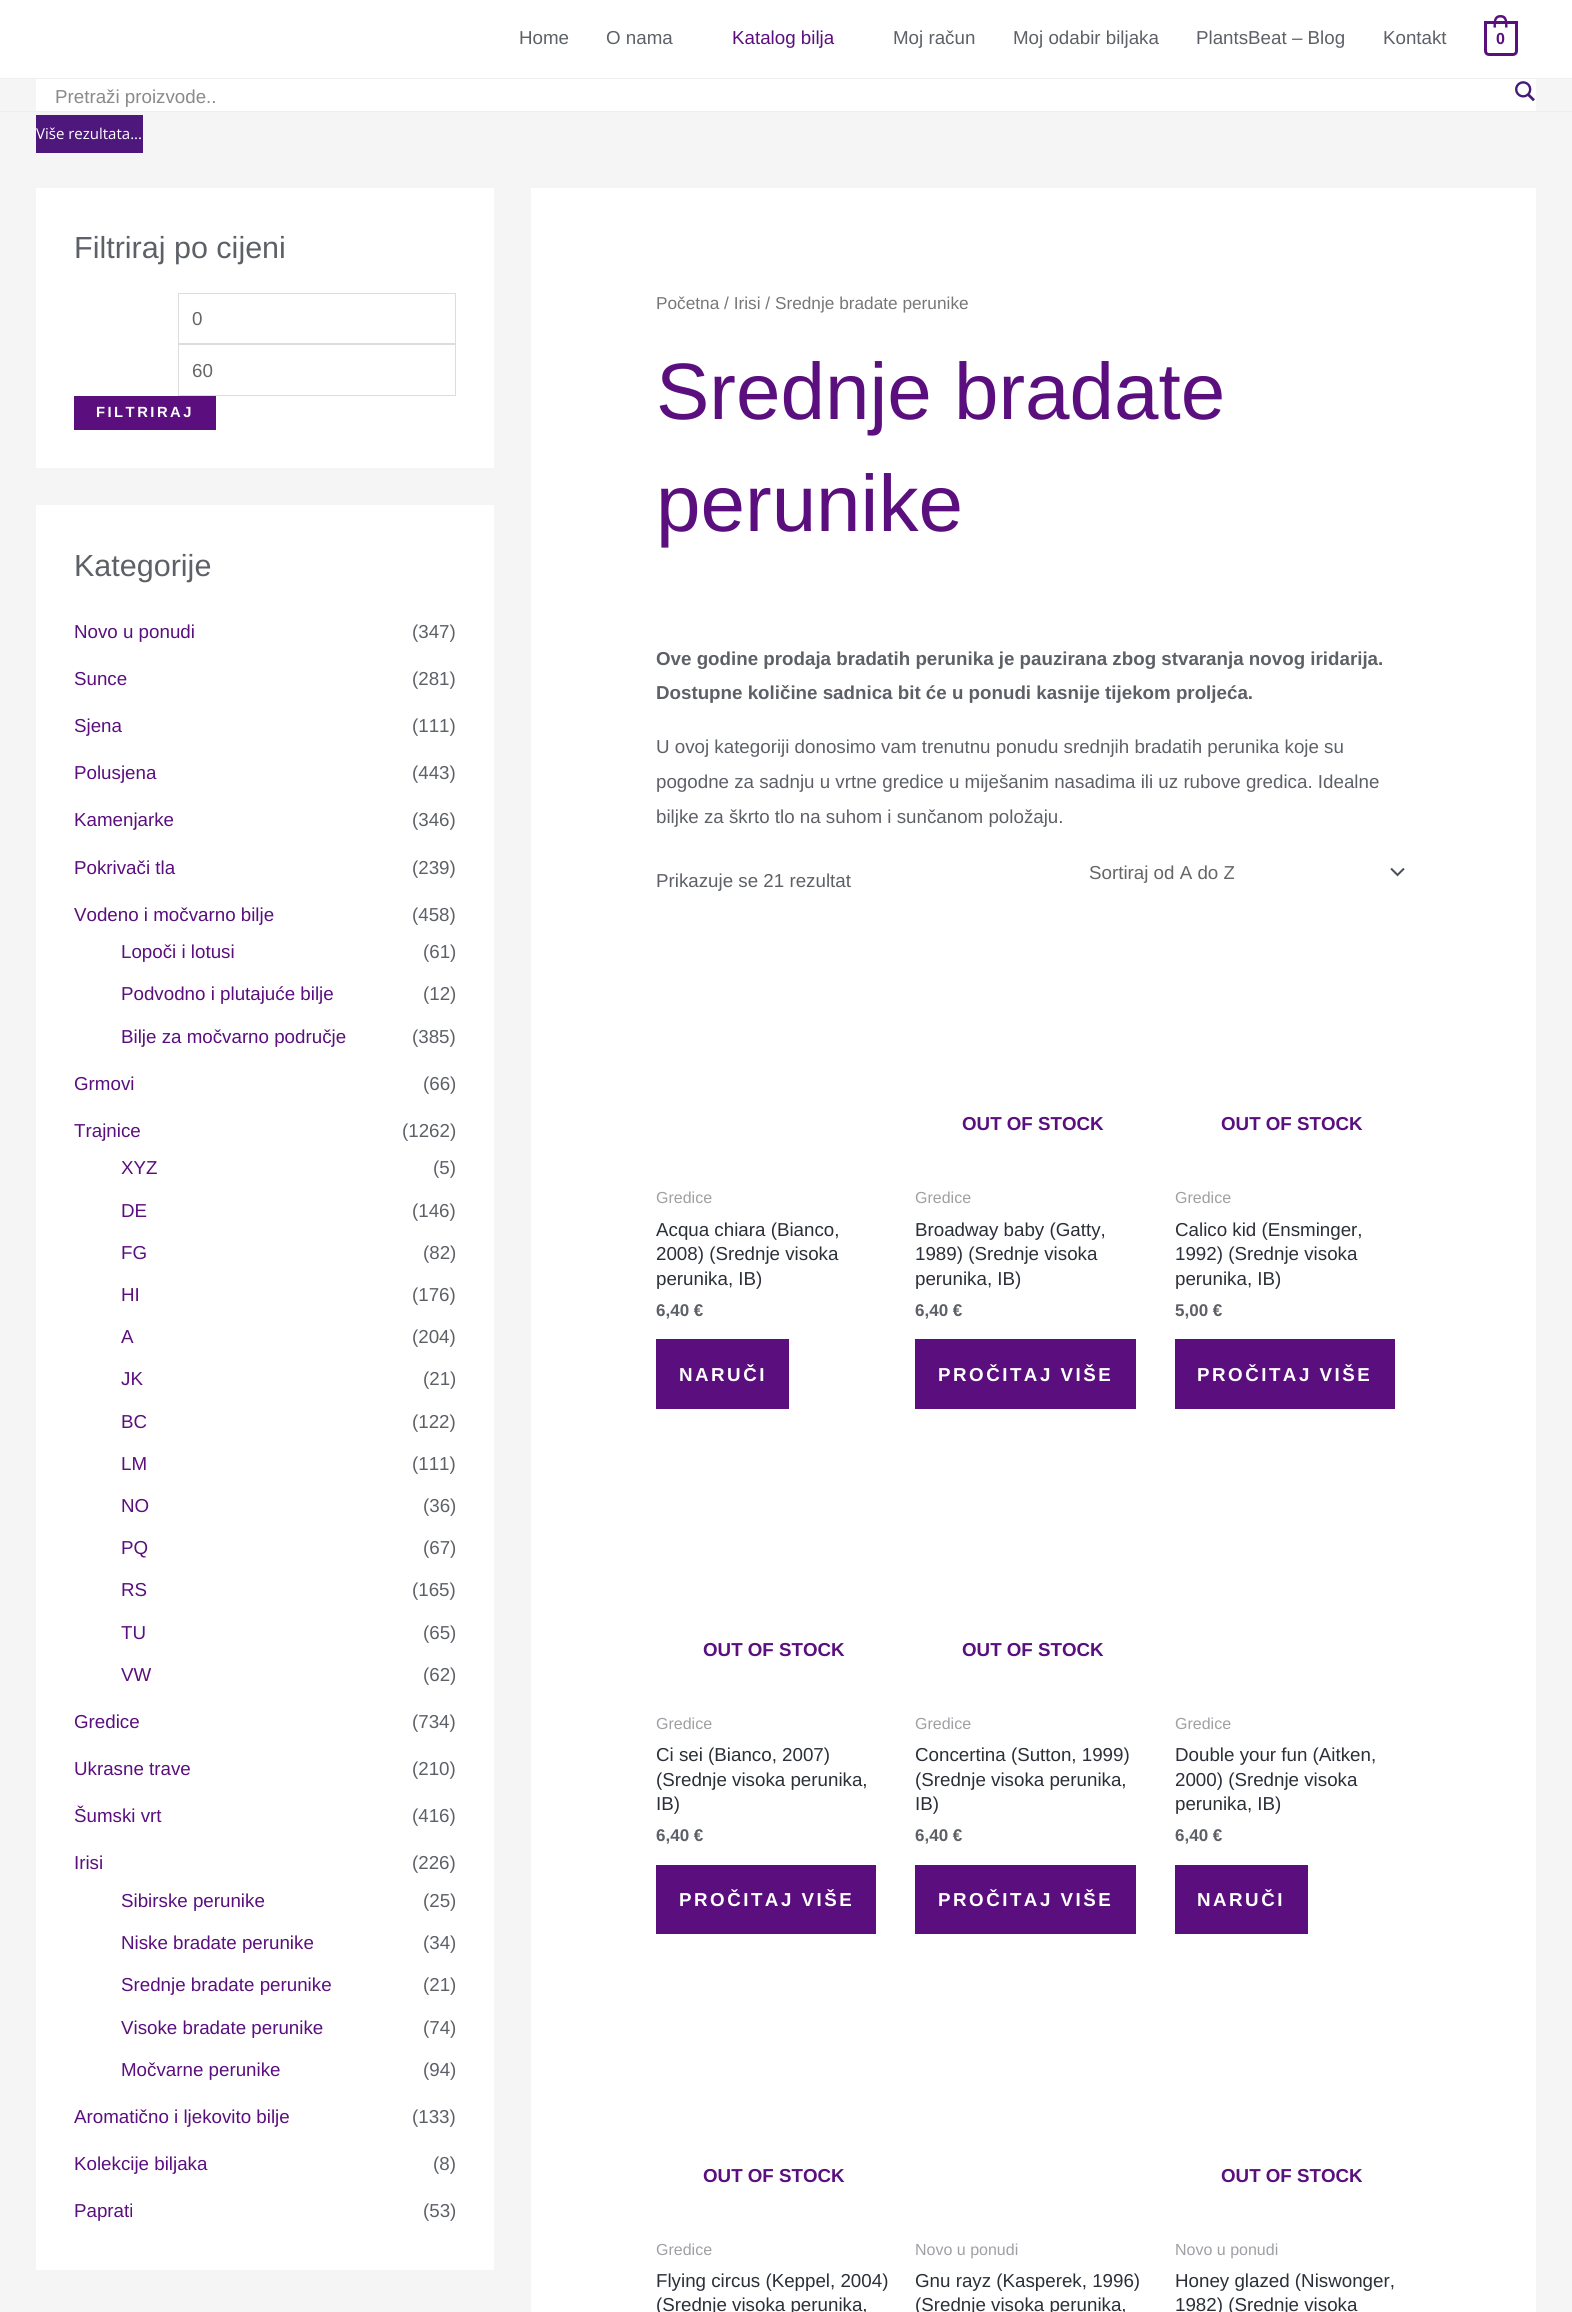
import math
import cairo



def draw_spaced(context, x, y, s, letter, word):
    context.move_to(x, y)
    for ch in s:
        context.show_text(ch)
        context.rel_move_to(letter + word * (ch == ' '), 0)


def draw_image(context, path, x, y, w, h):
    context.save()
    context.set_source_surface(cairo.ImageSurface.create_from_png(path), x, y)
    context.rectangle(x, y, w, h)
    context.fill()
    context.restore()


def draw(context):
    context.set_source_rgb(245 / 255, 245 / 255, 245 / 255)
    context.paint()
    context.set_source_rgb(1, 1, 1)
    context.rectangle(0, 0, 1572, 78)
    context.fill()
    context.new_path()
    context.move_to(1485.5, 22.5)
    context.line_to(1516.5, 22.5)
    context.line_to(1516.5, 51)
    context.curve_to(1516.5, 53, 1515, 54.5, 1513, 54.5)
    context.line_to(1489, 54.5)
    context.curve_to(1487, 54.5, 1485.5, 53, 1485.5, 51)
    context.close_path()
    context.set_source_rgb(91 / 255, 15 / 255, 126 / 255)
    context.set_line_width(3)
    context.stroke()
    context.set_fill_rule(cairo.FillRule.EVEN_ODD)
    context.new_path()
    context.move_to(1500.5, 15)
    context.curve_to(1508, 15, 1507.5, 22.5, 1507.5, 27.5)
    context.line_to(1493.5, 27.5)
    context.curve_to(1493.5, 22.5, 1493, 15, 1500.5, 15)
    context.close_path()
    context.move_to(1500.5, 17.5)
    context.curve_to(1506, 17.5, 1505, 24, 1505, 27.5)
    context.line_to(1496, 27.5)
    context.curve_to(1496, 24, 1495, 17.5, 1500.5, 17.5)
    context.close_path()
    context.fill()
    context.set_source_rgb(238 / 255, 238 / 255, 238 / 255)
    context.rectangle(0, 78, 1572, 1)
    context.fill()
    context.rectangle(0, 111, 1572, 1)
    context.fill()
    context.set_source_rgb(1, 1, 1)
    context.rectangle(36, 79, 1500, 32)
    context.fill()
    draw_image(context, "images/1.png", 1515, 81, 20, 21)
    context.set_source_rgb(78 / 255, 23 / 255, 123 / 255)
    context.rectangle(36, 115, 107, 38)
    context.fill()
    context.set_source_rgb(1, 1, 1)
    context.rectangle(36, 188, 458, 280)
    context.fill()
    context.rectangle(178.5, 293.5, 277, 50)
    context.set_source_rgb(221 / 255, 221 / 255, 221 / 255)
    context.set_line_width(1)
    context.stroke()
    context.rectangle(178.5, 344.5, 277, 51)
    context.stroke()
    context.set_source_rgb(91 / 255, 15 / 255, 126 / 255)
    context.rectangle(74, 396, 142, 34)
    context.fill()
    context.set_source_rgb(1, 1, 1)
    context.rectangle(36, 505, 458, 1765)
    context.fill()
    context.rectangle(531, 188, 1005, 2124)
    context.fill()
    draw_image(context, "images/2.png", 1390, 868, 15, 9)
    context.set_source_rgb(91 / 255, 15 / 255, 126 / 255)
    context.rectangle(656, 1339, 133, 70)
    context.fill()
    context.rectangle(915, 1339, 221, 70)
    context.fill()
    context.rectangle(1175, 1339, 220, 70)
    context.fill()
    context.rectangle(656, 1865, 220, 69)
    context.fill()
    context.rectangle(915, 1865, 221, 69)
    context.fill()
    context.rectangle(1175, 1865, 133, 69)
    context.fill()
    context.select_font_face("Liberation Sans")
    context.set_font_size(18.75)
    context.set_source_rgb(93 / 255, 97 / 255, 103 / 255)
    context.move_to(519, 44)
    context.show_text("Home")
    context.move_to(606, 44)
    context.show_text("O nama")
    context.set_source_rgb(91 / 255, 15 / 255, 126 / 255)
    context.move_to(732, 44)
    context.show_text("Katalog bilja")
    context.set_source_rgb(93 / 255, 97 / 255, 103 / 255)
    context.move_to(893, 44)
    context.show_text("Moj račun")
    context.move_to(1013, 44)
    context.show_text("Moj odabir biljaka")
    context.move_to(1196, 44)
    context.show_text("PlantsBeat – Blog")
    context.move_to(1383, 44)
    context.show_text("Kontakt")
    context.select_font_face("Liberation Sans", cairo.FontSlant.NORMAL, cairo.FontWeight.BOLD)
    context.set_font_size(16)
    context.set_source_rgb(91 / 255, 15 / 255, 126 / 255)
    context.move_to(1496, 44)
    context.show_text("0")
    context.select_font_face("Liberation Sans")
    context.set_font_size(18.75)
    context.set_source_rgb(138 / 255, 138 / 255, 138 / 255)
    context.move_to(55, 103)
    context.show_text("Pretraži proizvode..")
    context.select_font_face("Open Sans")
    context.set_font_size(15)
    context.set_source_rgb(1, 1, 1)
    context.move_to(36, 139)
    context.show_text("Više rezultata...")
    context.select_font_face("Liberation Sans")
    context.set_font_size(30.5)
    context.set_source_rgb(93 / 255, 97 / 255, 103 / 255)
    context.move_to(74, 258)
    context.show_text("Filtriraj po cijeni")
    context.set_font_size(18.75)
    context.set_source_rgb(102 / 255, 102 / 255, 102 / 255)
    context.move_to(192, 325)
    context.show_text("0")
    context.move_to(192, 377)
    context.show_text("60")
    context.select_font_face("Liberation Sans", cairo.FontSlant.NORMAL, cairo.FontWeight.BOLD)
    context.set_font_size(14.75)
    context.set_source_rgb(1, 1, 1)
    draw_spaced(context, 96, 417, "FILTRIRAJ", 2.5, 0)
    context.select_font_face("Liberation Sans")
    context.set_font_size(30.5)
    context.set_source_rgb(93 / 255, 97 / 255, 103 / 255)
    context.move_to(74, 576)
    context.show_text("Kategorije")
    context.set_font_size(18.75)
    context.set_source_rgb(91 / 255, 15 / 255, 126 / 255)
    context.move_to(74, 638)
    context.show_text("Novo u ponudi")
    context.set_source_rgb(93 / 255, 97 / 255, 103 / 255)
    context.move_to(412, 638)
    context.show_text("(347)")
    context.set_source_rgb(91 / 255, 15 / 255, 126 / 255)
    context.move_to(74, 685)
    context.show_text("Sunce")
    context.set_source_rgb(93 / 255, 97 / 255, 103 / 255)
    context.move_to(412, 685)
    context.show_text("(281)")
    context.set_source_rgb(91 / 255, 15 / 255, 126 / 255)
    context.move_to(74, 732)
    context.show_text("Sjena")
    context.set_source_rgb(93 / 255, 97 / 255, 103 / 255)
    context.move_to(412, 732)
    context.show_text("(111)")
    context.set_source_rgb(91 / 255, 15 / 255, 126 / 255)
    context.move_to(74, 779)
    context.show_text("Polusjena")
    context.set_source_rgb(93 / 255, 97 / 255, 103 / 255)
    context.move_to(412, 779)
    context.show_text("(443)")
    context.set_source_rgb(91 / 255, 15 / 255, 126 / 255)
    context.move_to(74, 826)
    context.show_text("Kamenjarke")
    context.set_source_rgb(93 / 255, 97 / 255, 103 / 255)
    context.move_to(412, 826)
    context.show_text("(346)")
    context.set_source_rgb(91 / 255, 15 / 255, 126 / 255)
    context.move_to(74, 874)
    context.show_text("Pokrivači tla")
    context.set_source_rgb(93 / 255, 97 / 255, 103 / 255)
    context.move_to(412, 874)
    context.show_text("(239)")
    context.set_source_rgb(91 / 255, 15 / 255, 126 / 255)
    context.move_to(74, 921)
    context.show_text("Vodeno i močvarno bilje")
    context.set_source_rgb(93 / 255, 97 / 255, 103 / 255)
    context.move_to(412, 921)
    context.show_text("(458)")
    context.set_source_rgb(91 / 255, 15 / 255, 126 / 255)
    context.move_to(121, 958)
    context.show_text("Lopoči i lotusi")
    context.set_source_rgb(93 / 255, 97 / 255, 103 / 255)
    context.move_to(423, 958)
    context.show_text("(61)")
    context.set_source_rgb(91 / 255, 15 / 255, 126 / 255)
    context.move_to(121, 1000)
    context.show_text("Podvodno i plutajuće bilje")
    context.set_source_rgb(93 / 255, 97 / 255, 103 / 255)
    context.move_to(423, 1000)
    context.show_text("(12)")
    context.set_source_rgb(91 / 255, 15 / 255, 126 / 255)
    context.move_to(121, 1043)
    context.show_text("Bilje za močvarno područje")
    context.set_source_rgb(93 / 255, 97 / 255, 103 / 255)
    context.move_to(412, 1043)
    context.show_text("(385)")
    context.set_source_rgb(91 / 255, 15 / 255, 126 / 255)
    context.move_to(74, 1090)
    context.show_text("Grmovi")
    context.set_source_rgb(93 / 255, 97 / 255, 103 / 255)
    context.move_to(423, 1090)
    context.show_text("(66)")
    context.set_source_rgb(91 / 255, 15 / 255, 126 / 255)
    context.move_to(74, 1137)
    context.show_text("Trajnice")
    context.set_source_rgb(93 / 255, 97 / 255, 103 / 255)
    context.move_to(402, 1137)
    context.show_text("(1262)")
    context.set_source_rgb(91 / 255, 15 / 255, 126 / 255)
    context.move_to(121, 1174)
    context.show_text("XYZ")
    context.set_source_rgb(93 / 255, 97 / 255, 103 / 255)
    context.move_to(433, 1174)
    context.show_text("(5)")
    context.set_source_rgb(91 / 255, 15 / 255, 126 / 255)
    context.move_to(121, 1217)
    context.show_text("DE")
    context.set_source_rgb(93 / 255, 97 / 255, 103 / 255)
    context.move_to(412, 1217)
    context.show_text("(146)")
    context.set_source_rgb(91 / 255, 15 / 255, 126 / 255)
    context.move_to(121, 1259)
    context.show_text("FG")
    context.set_source_rgb(93 / 255, 97 / 255, 103 / 255)
    context.move_to(423, 1259)
    context.show_text("(82)")
    context.set_source_rgb(91 / 255, 15 / 255, 126 / 255)
    context.move_to(121, 1301)
    context.show_text("HI")
    context.set_source_rgb(93 / 255, 97 / 255, 103 / 255)
    context.move_to(412, 1301)
    context.show_text("(176)")
    context.set_source_rgb(91 / 255, 15 / 255, 126 / 255)
    context.move_to(121, 1343)
    context.show_text("A")
    context.set_source_rgb(93 / 255, 97 / 255, 103 / 255)
    context.move_to(412, 1343)
    context.show_text("(204)")
    context.set_source_rgb(91 / 255, 15 / 255, 126 / 255)
    context.move_to(121, 1385)
    context.show_text("JK")
    context.set_source_rgb(93 / 255, 97 / 255, 103 / 255)
    context.move_to(423, 1385)
    context.show_text("(21)")
    context.set_source_rgb(91 / 255, 15 / 255, 126 / 255)
    context.move_to(121, 1428)
    context.show_text("BC")
    context.set_source_rgb(93 / 255, 97 / 255, 103 / 255)
    context.move_to(412, 1428)
    context.show_text("(122)")
    context.set_source_rgb(91 / 255, 15 / 255, 126 / 255)
    context.move_to(121, 1470)
    context.show_text("LM")
    context.set_source_rgb(93 / 255, 97 / 255, 103 / 255)
    context.move_to(412, 1470)
    context.show_text("(111)")
    context.set_source_rgb(91 / 255, 15 / 255, 126 / 255)
    context.move_to(121, 1512)
    context.show_text("NO")
    context.set_source_rgb(93 / 255, 97 / 255, 103 / 255)
    context.move_to(423, 1512)
    context.show_text("(36)")
    context.set_source_rgb(91 / 255, 15 / 255, 126 / 255)
    context.move_to(121, 1554)
    context.show_text("PQ")
    context.set_source_rgb(93 / 255, 97 / 255, 103 / 255)
    context.move_to(423, 1554)
    context.show_text("(67)")
    context.set_source_rgb(91 / 255, 15 / 255, 126 / 255)
    context.move_to(121, 1596)
    context.show_text("RS")
    context.set_source_rgb(93 / 255, 97 / 255, 103 / 255)
    context.move_to(412, 1596)
    context.show_text("(165)")
    context.set_source_rgb(91 / 255, 15 / 255, 126 / 255)
    context.move_to(121, 1639)
    context.show_text("TU")
    context.set_source_rgb(93 / 255, 97 / 255, 103 / 255)
    context.move_to(423, 1639)
    context.show_text("(65)")
    context.set_source_rgb(91 / 255, 15 / 255, 126 / 255)
    context.move_to(121, 1681)
    context.show_text("VW")
    context.set_source_rgb(93 / 255, 97 / 255, 103 / 255)
    context.move_to(423, 1681)
    context.show_text("(62)")
    context.set_source_rgb(91 / 255, 15 / 255, 126 / 255)
    context.move_to(74, 1728)
    context.show_text("Gredice")
    context.set_source_rgb(93 / 255, 97 / 255, 103 / 255)
    context.move_to(412, 1728)
    context.show_text("(734)")
    context.set_source_rgb(91 / 255, 15 / 255, 126 / 255)
    context.move_to(74, 1775)
    context.show_text("Ukrasne trave")
    context.set_source_rgb(93 / 255, 97 / 255, 103 / 255)
    context.move_to(412, 1775)
    context.show_text("(210)")
    context.set_source_rgb(91 / 255, 15 / 255, 126 / 255)
    context.move_to(74, 1822)
    context.show_text("Šumski vrt")
    context.set_source_rgb(93 / 255, 97 / 255, 103 / 255)
    context.move_to(412, 1822)
    context.show_text("(416)")
    context.set_source_rgb(91 / 255, 15 / 255, 126 / 255)
    context.move_to(74, 1869)
    context.show_text("Irisi")
    context.set_source_rgb(93 / 255, 97 / 255, 103 / 255)
    context.move_to(412, 1869)
    context.show_text("(226)")
    context.set_source_rgb(91 / 255, 15 / 255, 126 / 255)
    context.move_to(121, 1907)
    context.show_text("Sibirske perunike")
    context.set_source_rgb(93 / 255, 97 / 255, 103 / 255)
    context.move_to(423, 1907)
    context.show_text("(25)")
    context.set_source_rgb(91 / 255, 15 / 255, 126 / 255)
    context.move_to(121, 1949)
    context.show_text("Niske bradate perunike")
    context.set_source_rgb(93 / 255, 97 / 255, 103 / 255)
    context.move_to(423, 1949)
    context.show_text("(34)")
    context.set_source_rgb(91 / 255, 15 / 255, 126 / 255)
    context.move_to(121, 1991)
    context.show_text("Srednje bradate perunike")
    context.set_source_rgb(93 / 255, 97 / 255, 103 / 255)
    context.move_to(423, 1991)
    context.show_text("(21)")
    context.set_source_rgb(91 / 255, 15 / 255, 126 / 255)
    context.move_to(121, 2034)
    context.show_text("Visoke bradate perunike")
    context.set_source_rgb(93 / 255, 97 / 255, 103 / 255)
    context.move_to(423, 2034)
    context.show_text("(74)")
    context.set_source_rgb(91 / 255, 15 / 255, 126 / 255)
    context.move_to(121, 2076)
    context.show_text("Močvarne perunike")
    context.set_source_rgb(93 / 255, 97 / 255, 103 / 255)
    context.move_to(423, 2076)
    context.show_text("(94)")
    context.set_source_rgb(91 / 255, 15 / 255, 126 / 255)
    context.move_to(74, 2123)
    context.show_text("Aromatično i ljekovito bilje")
    context.set_source_rgb(93 / 255, 97 / 255, 103 / 255)
    context.move_to(412, 2123)
    context.show_text("(133)")
    context.set_source_rgb(91 / 255, 15 / 255, 126 / 255)
    context.move_to(74, 2170)
    context.show_text("Kolekcije biljaka")
    context.set_source_rgb(93 / 255, 97 / 255, 103 / 255)
    context.move_to(433, 2170)
    context.show_text("(8)")
    context.set_source_rgb(91 / 255, 15 / 255, 126 / 255)
    context.move_to(74, 2217)
    context.show_text("Paprati")
    context.set_source_rgb(93 / 255, 97 / 255, 103 / 255)
    context.move_to(423, 2217)
    context.show_text("(53)")
    context.set_font_size(17.25)
    context.set_source_rgb(119 / 255, 119 / 255, 119 / 255)
    context.move_to(656, 309)
    context.show_text("Početna / Irisi / Srednje bradate perunike")
    context.set_font_size(80)
    context.set_source_rgb(91 / 255, 15 / 255, 126 / 255)
    context.move_to(656, 419)
    context.show_text("Srednje bradate")
    context.move_to(656, 531)
    context.show_text("perunike")
    context.select_font_face("Liberation Sans", cairo.FontSlant.NORMAL, cairo.FontWeight.BOLD)
    context.set_font_size(18.75)
    context.set_source_rgb(93 / 255, 97 / 255, 103 / 255)
    context.move_to(656, 665)
    context.show_text("Ove godine prodaja bradatih perunika je pauzirana zbog stvaranja novog iridarija.")
    context.move_to(656, 699)
    context.show_text("Dostupne količine sadnica bit će u ponudi kasnije tijekom proljeća.")
    context.select_font_face("Liberation Sans")
    context.move_to(656, 753)
    context.show_text("U ovoj kategoriji donosimo vam trenutnu ponudu srednjih bradatih perunika koje su")
    context.move_to(656, 788)
    context.show_text("pogodne za sadnju u vrtne gredice u miješanim nasadima ili uz rubove gredica. Idealne")
    context.move_to(656, 823)
    context.show_text("biljke za škrto tlo na suhom i sunčanom položaju.")
    context.move_to(656, 887)
    context.show_text("Prikazuje se 21 rezultat")
    context.set_source_rgb(102 / 255, 102 / 255, 102 / 255)
    context.move_to(1089, 879)
    context.show_text("Sortiraj od A do Z")
    context.set_font_size(16)
    context.set_source_rgb(158 / 255, 160 / 255, 164 / 255)
    context.move_to(656, 1203)
    context.show_text("Gredice")
    context.set_font_size(18.75)
    context.set_source_rgb(43 / 255, 47 / 255, 56 / 255)
    context.move_to(656, 1236)
    context.show_text("Acqua chiara (Bianco,")
    context.move_to(656, 1260)
    context.show_text("2008) (Srednje visoka")
    context.move_to(656, 1285)
    context.show_text("perunika, IB)")
    context.select_font_face("Liberation Sans", cairo.FontSlant.NORMAL, cairo.FontWeight.BOLD)
    context.set_font_size(17)
    context.set_source_rgb(93 / 255, 97 / 255, 103 / 255)
    context.move_to(656, 1316)
    context.show_text("6,40 €")
    context.set_font_size(18.75)
    context.set_source_rgb(1, 1, 1)
    draw_spaced(context, 679, 1381, "NARUČI", 2.5, 0)
    context.set_source_rgb(91 / 255, 15 / 255, 126 / 255)
    context.move_to(962, 1130)
    context.show_text("OUT OF STOCK")
    context.select_font_face("Liberation Sans")
    context.set_font_size(16)
    context.set_source_rgb(158 / 255, 160 / 255, 164 / 255)
    context.move_to(915, 1203)
    context.show_text("Gredice")
    context.set_font_size(18.75)
    context.set_source_rgb(43 / 255, 47 / 255, 56 / 255)
    context.move_to(915, 1236)
    context.show_text("Broadway baby (Gatty,")
    context.move_to(915, 1260)
    context.show_text("1989) (Srednje visoka")
    context.move_to(915, 1285)
    context.show_text("perunika, IB)")
    context.select_font_face("Liberation Sans", cairo.FontSlant.NORMAL, cairo.FontWeight.BOLD)
    context.set_font_size(17)
    context.set_source_rgb(93 / 255, 97 / 255, 103 / 255)
    context.move_to(915, 1316)
    context.show_text("6,40 €")
    context.set_font_size(18.75)
    context.set_source_rgb(1, 1, 1)
    draw_spaced(context, 938, 1381, "PROČITAJ VIŠE", 2.5, 0)
    context.set_source_rgb(91 / 255, 15 / 255, 126 / 255)
    context.move_to(1221, 1130)
    context.show_text("OUT OF STOCK")
    context.select_font_face("Liberation Sans")
    context.set_font_size(16)
    context.set_source_rgb(158 / 255, 160 / 255, 164 / 255)
    context.move_to(1175, 1203)
    context.show_text("Gredice")
    context.set_font_size(18.75)
    context.set_source_rgb(43 / 255, 47 / 255, 56 / 255)
    context.move_to(1175, 1236)
    context.show_text("Calico kid (Ensminger,")
    context.move_to(1175, 1260)
    context.show_text("1992) (Srednje visoka")
    context.move_to(1175, 1285)
    context.show_text("perunika, IB)")
    context.select_font_face("Liberation Sans", cairo.FontSlant.NORMAL, cairo.FontWeight.BOLD)
    context.set_font_size(17)
    context.set_source_rgb(93 / 255, 97 / 255, 103 / 255)
    context.move_to(1175, 1316)
    context.show_text("5,00 €")
    context.set_font_size(18.75)
    context.set_source_rgb(1, 1, 1)
    draw_spaced(context, 1197, 1381, "PROČITAJ VIŠE", 2.5, 0)
    context.set_source_rgb(91 / 255, 15 / 255, 126 / 255)
    context.move_to(703, 1656)
    context.show_text("OUT OF STOCK")
    context.select_font_face("Liberation Sans")
    context.set_font_size(16)
    context.set_source_rgb(158 / 255, 160 / 255, 164 / 255)
    context.move_to(656, 1729)
    context.show_text("Gredice")
    context.set_font_size(18.75)
    context.set_source_rgb(43 / 255, 47 / 255, 56 / 255)
    context.move_to(656, 1761)
    context.show_text("Ci sei (Bianco, 2007)")
    context.move_to(656, 1786)
    context.show_text("(Srednje visoka perunika,")
    context.move_to(656, 1810)
    context.show_text("IB)")
    context.select_font_face("Liberation Sans", cairo.FontSlant.NORMAL, cairo.FontWeight.BOLD)
    context.set_font_size(17)
    context.set_source_rgb(93 / 255, 97 / 255, 103 / 255)
    context.move_to(656, 1841)
    context.show_text("6,40 €")
    context.set_font_size(18.75)
    context.set_source_rgb(1, 1, 1)
    draw_spaced(context, 679, 1906, "PROČITAJ VIŠE", 2.5, 0)
    context.set_source_rgb(91 / 255, 15 / 255, 126 / 255)
    context.move_to(962, 1656)
    context.show_text("OUT OF STOCK")
    context.select_font_face("Liberation Sans")
    context.set_font_size(16)
    context.set_source_rgb(158 / 255, 160 / 255, 164 / 255)
    context.move_to(915, 1729)
    context.show_text("Gredice")
    context.set_font_size(18.75)
    context.set_source_rgb(43 / 255, 47 / 255, 56 / 255)
    context.move_to(915, 1761)
    context.show_text("Concertina (Sutton, 1999)")
    context.move_to(915, 1786)
    context.show_text("(Srednje visoka perunika,")
    context.move_to(915, 1810)
    context.show_text("IB)")
    context.select_font_face("Liberation Sans", cairo.FontSlant.NORMAL, cairo.FontWeight.BOLD)
    context.set_font_size(17)
    context.set_source_rgb(93 / 255, 97 / 255, 103 / 255)
    context.move_to(915, 1841)
    context.show_text("6,40 €")
    context.set_font_size(18.75)
    context.set_source_rgb(1, 1, 1)
    draw_spaced(context, 938, 1906, "PROČITAJ VIŠE", 2.5, 0)
    context.select_font_face("Liberation Sans")
    context.set_font_size(16)
    context.set_source_rgb(158 / 255, 160 / 255, 164 / 255)
    context.move_to(1175, 1729)
    context.show_text("Gredice")
    context.set_font_size(18.75)
    context.set_source_rgb(43 / 255, 47 / 255, 56 / 255)
    context.move_to(1175, 1761)
    context.show_text("Double your fun (Aitken,")
    context.move_to(1175, 1786)
    context.show_text("2000) (Srednje visoka")
    context.move_to(1175, 1810)
    context.show_text("perunika, IB)")
    context.select_font_face("Liberation Sans", cairo.FontSlant.NORMAL, cairo.FontWeight.BOLD)
    context.set_font_size(17)
    context.set_source_rgb(93 / 255, 97 / 255, 103 / 255)
    context.move_to(1175, 1841)
    context.show_text("6,40 €")
    context.set_font_size(18.75)
    context.set_source_rgb(1, 1, 1)
    draw_spaced(context, 1197, 1906, "NARUČI", 2.5, 0)
    context.set_source_rgb(91 / 255, 15 / 255, 126 / 255)
    context.move_to(703, 2182)
    context.show_text("OUT OF STOCK")
    context.select_font_face("Liberation Sans")
    context.set_font_size(16)
    context.set_source_rgb(158 / 255, 160 / 255, 164 / 255)
    context.move_to(656, 2255)
    context.show_text("Gredice")
    context.set_font_size(18.75)
    context.set_source_rgb(43 / 255, 47 / 255, 56 / 255)
    context.move_to(656, 2287)
    context.show_text("Flying circus (Keppel, 2004)")
    context.move_to(656, 2311)
    context.show_text("(Srednje visoka perunika,")
    context.set_font_size(16)
    context.set_source_rgb(158 / 255, 160 / 255, 164 / 255)
    context.move_to(915, 2255)
    context.show_text("Novo u ponudi")
    context.set_font_size(18.75)
    context.set_source_rgb(43 / 255, 47 / 255, 56 / 255)
    context.move_to(915, 2287)
    context.show_text("Gnu rayz (Kasperek, 1996)")
    context.move_to(915, 2311)
    context.show_text("(Srednje visoka perunika,")
    context.select_font_face("Liberation Sans", cairo.FontSlant.NORMAL, cairo.FontWeight.BOLD)
    context.set_source_rgb(91 / 255, 15 / 255, 126 / 255)
    context.move_to(1221, 2182)
    context.show_text("OUT OF STOCK")
    context.select_font_face("Liberation Sans")
    context.set_font_size(16)
    context.set_source_rgb(158 / 255, 160 / 255, 164 / 255)
    context.move_to(1175, 2255)
    context.show_text("Novo u ponudi")
    context.set_font_size(18.75)
    context.set_source_rgb(43 / 255, 47 / 255, 56 / 255)
    context.move_to(1175, 2287)
    context.show_text("Honey glazed (Niswonger,")
    context.move_to(1175, 2311)
    context.show_text("1982) (Srednje visoka")


surface = cairo.ImageSurface(cairo.Format.RGB24, 1572, 2312)
context = cairo.Context(surface)
options = cairo.FontOptions()
options.set_hint_metrics(cairo.HintMetrics.OFF)
options.set_hint_style(cairo.HintStyle.NONE)
context.set_font_options(options)
context.set_miter_limit(4)
draw(context)
surface.write_to_png("out.png")
